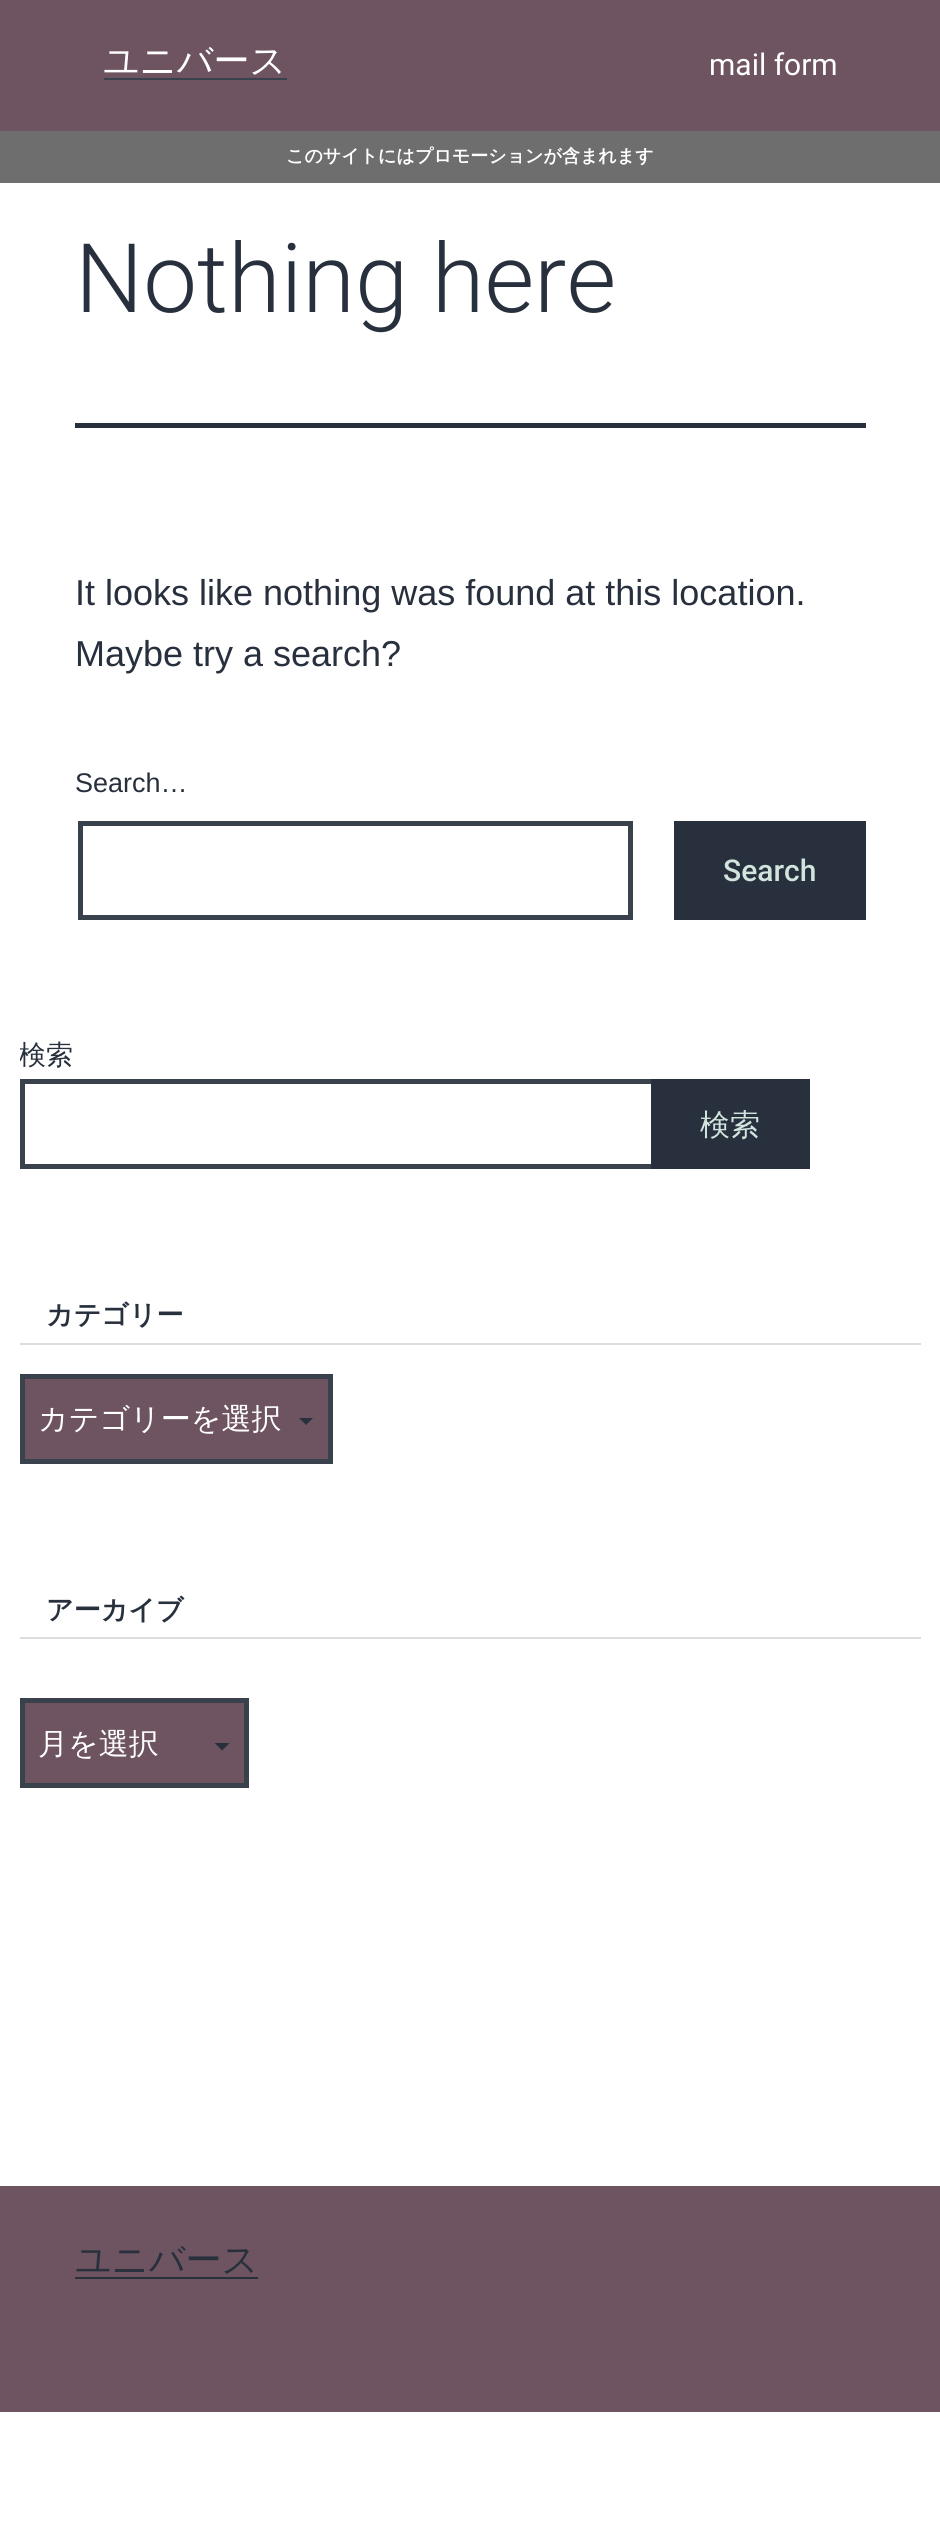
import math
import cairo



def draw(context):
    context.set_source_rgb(1, 1, 1)
    context.paint()
    context.set_source_rgb(110 / 255, 84 / 255, 97 / 255)
    context.rectangle(0, 0, 940, 131)
    context.fill()
    context.set_source_rgb(57 / 255, 65 / 255, 77 / 255)
    context.rectangle(104, 78, 183, 2)
    context.fill()
    context.set_source_rgb(110 / 255, 110 / 255, 110 / 255)
    context.rectangle(0, 131, 940, 52)
    context.fill()
    context.set_source_rgb(40 / 255, 48 / 255, 61 / 255)
    context.rectangle(75, 423, 791, 5)
    context.fill()
    context.rectangle(80.5, 823.5, 550, 94)
    context.set_source_rgb(57 / 255, 65 / 255, 77 / 255)
    context.set_line_width(5)
    context.stroke()
    context.set_source_rgb(40 / 255, 48 / 255, 61 / 255)
    context.rectangle(674, 821, 192, 99)
    context.fill()
    context.rectangle(22.5, 1081.5, 631, 85)
    context.set_source_rgb(57 / 255, 65 / 255, 77 / 255)
    context.stroke()
    context.set_source_rgb(40 / 255, 48 / 255, 61 / 255)
    context.rectangle(651, 1079, 159, 90)
    context.fill()
    context.set_source_rgb(221 / 255, 221 / 255, 221 / 255)
    context.rectangle(20, 1343, 901, 2)
    context.fill()
    context.set_source_rgb(110 / 255, 84 / 255, 97 / 255)
    context.rectangle(25, 1379, 303, 80)
    context.fill()
    context.save()
    context.rectangle(299, 1418, 15, 15)
    context.clip()
    context.set_source_rgb(40 / 255, 48 / 255, 61 / 255)
    context.new_path()
    context.move_to(298.5, 1417.5)
    context.line_to(313.5, 1417.5)
    context.line_to(306, 1425)
    context.close_path()
    context.fill()
    context.restore()
    context.rectangle(22.5, 1376.5, 308, 85)
    context.set_source_rgb(57 / 255, 65 / 255, 77 / 255)
    context.stroke()
    context.set_source_rgb(221 / 255, 221 / 255, 221 / 255)
    context.rectangle(20, 1637, 901, 2)
    context.fill()
    context.set_source_rgb(110 / 255, 84 / 255, 97 / 255)
    context.rectangle(25, 1703, 219, 80)
    context.fill()
    context.set_source_rgb(40 / 255, 48 / 255, 61 / 255)
    context.new_path()
    context.move_to(214.5, 1743)
    context.line_to(229.5, 1743)
    context.line_to(222, 1750.5)
    context.close_path()
    context.fill()
    context.rectangle(22.5, 1700.5, 224, 85)
    context.set_source_rgb(57 / 255, 65 / 255, 77 / 255)
    context.stroke()
    context.set_source_rgb(110 / 255, 84 / 255, 97 / 255)
    context.rectangle(0, 2186, 940, 226)
    context.fill()
    context.set_source_rgb(40 / 255, 48 / 255, 61 / 255)
    context.rectangle(75, 2277, 183, 2)
    context.fill()
    context.select_font_face("WenQuanYi Zen Hei Medium")
    context.set_font_size(36)
    context.set_source_rgb(1, 1, 1)
    context.move_to(103, 73)
    context.show_text("ユニバース")
    context.select_font_face("Roboto")
    context.set_font_size(30)
    context.move_to(709, 75)
    context.show_text("mail form")
    context.select_font_face("WenQuanYi Zen Hei", cairo.FontSlant.NORMAL, cairo.FontWeight.BOLD)
    context.set_font_size(18)
    context.move_to(286, 162)
    context.show_text("このサイトにはプロモーションが含まれます")
    context.select_font_face("Roboto Light")
    context.set_font_size(96)
    context.set_source_rgb(40 / 255, 48 / 255, 61 / 255)
    context.move_to(75, 312)
    context.show_text("Nothing here")
    context.select_font_face("Liberation Sans")
    context.set_font_size(36)
    context.move_to(75, 605)
    context.show_text("It looks like nothing was found at this location.")
    context.move_to(75, 666)
    context.show_text("Maybe try a search?")
    context.set_font_size(27)
    context.move_to(75, 792)
    context.show_text("Search…")
    context.select_font_face("Roboto Medium")
    context.set_font_size(30)
    context.set_source_rgb(209 / 255, 228 / 255, 221 / 255)
    context.move_to(723, 881)
    context.show_text("Search")
    context.save()
    context.rectangle(20, 1019, 901, 897)
    context.clip()
    context.select_font_face("WenQuanYi Zen Hei Medium")
    context.set_font_size(27)
    context.set_source_rgb(40 / 255, 48 / 255, 61 / 255)
    context.move_to(19, 1064)
    context.show_text("検索")
    context.restore()
    context.select_font_face("WenQuanYi Zen Hei Medium")
    context.move_to(700, 1135)
    context.show_text("検索")
    context.select_font_face("WenQuanYi Zen Hei", cairo.FontSlant.NORMAL, cairo.FontWeight.BOLD)
    context.set_font_size(27)
    context.set_source_rgb(40 / 255, 48 / 255, 61 / 255)
    context.move_to(46, 1324)
    context.show_text("カテゴリー")
    context.select_font_face("WenQuanYi Zen Hei Medium")
    context.set_font_size(30)
    context.set_source_rgb(1, 1, 1)
    context.move_to(38, 1429)
    context.show_text("カテゴリーを選択")
    context.select_font_face("WenQuanYi Zen Hei", cairo.FontSlant.NORMAL, cairo.FontWeight.BOLD)
    context.set_font_size(27)
    context.set_source_rgb(40 / 255, 48 / 255, 61 / 255)
    context.move_to(46, 1619)
    context.show_text("アーカイブ")
    context.select_font_face("WenQuanYi Zen Hei Medium")
    context.set_font_size(30)
    context.set_source_rgb(1, 1, 1)
    context.move_to(38, 1754)
    context.show_text("月を選択")
    context.set_font_size(36)
    context.set_source_rgb(40 / 255, 48 / 255, 61 / 255)
    context.move_to(75, 2272)
    context.show_text("ユニバース")


surface = cairo.ImageSurface(cairo.Format.RGB24, 940, 2541)
context = cairo.Context(surface)
options = cairo.FontOptions()
options.set_hint_metrics(cairo.HintMetrics.OFF)
options.set_hint_style(cairo.HintStyle.NONE)
context.set_font_options(options)
context.set_miter_limit(4)
draw(context)
surface.write_to_png("out.png")
